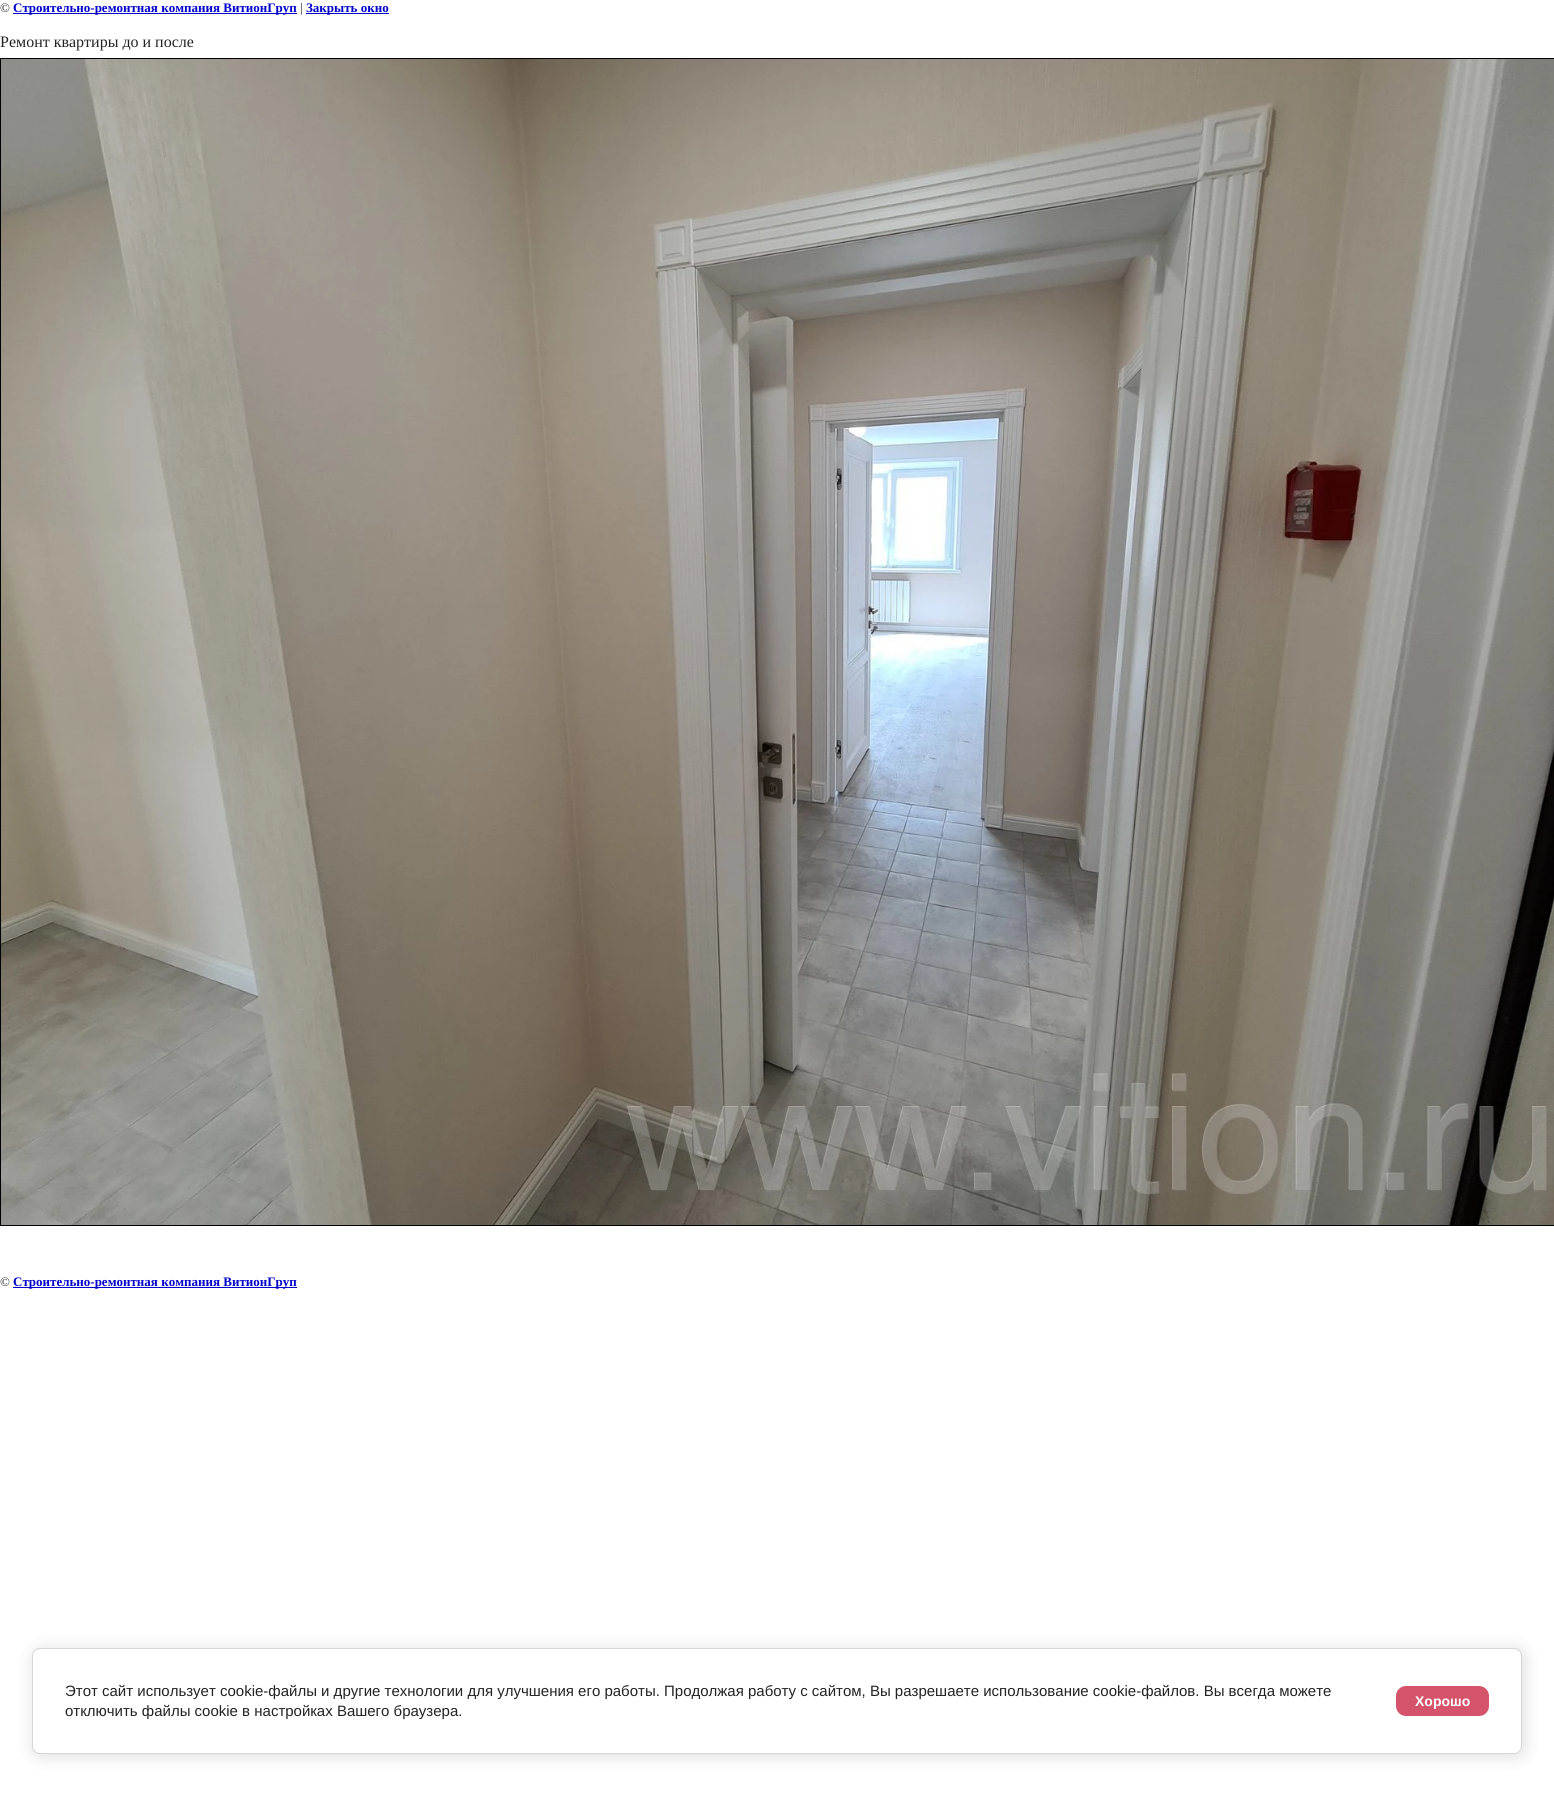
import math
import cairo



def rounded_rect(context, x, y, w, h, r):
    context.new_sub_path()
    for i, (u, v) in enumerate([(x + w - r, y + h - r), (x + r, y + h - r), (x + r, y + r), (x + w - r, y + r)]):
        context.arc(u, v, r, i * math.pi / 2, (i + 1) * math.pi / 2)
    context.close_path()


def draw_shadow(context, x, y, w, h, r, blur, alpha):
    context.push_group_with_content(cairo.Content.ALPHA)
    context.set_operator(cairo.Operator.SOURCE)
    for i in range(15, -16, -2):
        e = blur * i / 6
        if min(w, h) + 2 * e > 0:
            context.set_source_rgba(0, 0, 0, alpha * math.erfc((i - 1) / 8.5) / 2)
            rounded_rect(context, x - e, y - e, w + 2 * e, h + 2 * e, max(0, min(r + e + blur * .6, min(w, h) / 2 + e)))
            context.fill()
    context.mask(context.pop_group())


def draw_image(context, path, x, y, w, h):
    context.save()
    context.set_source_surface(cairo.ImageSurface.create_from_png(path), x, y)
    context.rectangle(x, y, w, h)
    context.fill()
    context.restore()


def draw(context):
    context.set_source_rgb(1, 1, 1)
    context.paint()
    context.set_source_rgb(0, 0, 204 / 255)
    context.rectangle(13, 13, 284, 1)
    context.fill()
    context.rectangle(306, 13, 83, 1)
    context.fill()
    context.rectangle(0.5, 58.5, 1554, 1167)
    context.set_source_rgb(0, 0, 0)
    context.set_line_width(1)
    context.stroke()
    draw_image(context, "images/1.png", 1, 59, 1553, 1166)
    context.set_source_rgb(0, 0, 204 / 255)
    context.rectangle(13, 1287, 284, 1)
    context.fill()
    context.set_source_rgb(0, 0, 0)
    draw_shadow(context, 34, 1650, 1490, 106, 8, 9, 0.14)
    context.set_source_rgb(1, 1, 1)
    rounded_rect(context, 32.5, 1648.5, 1489, 105, 7.5)
    context.fill_preserve()
    context.set_source_rgb(214 / 255, 214 / 255, 214 / 255)
    context.stroke()
    context.set_source_rgb(214 / 255, 84 / 255, 107 / 255)
    rounded_rect(context, 1396, 1686, 93, 30, 10)
    context.fill()
    context.select_font_face("Liberation Serif")
    context.set_font_size(13)
    context.set_source_rgb(35 / 255, 35 / 255, 35 / 255)
    context.move_to(0, 12)
    context.show_text("©")
    context.select_font_face("Liberation Serif", cairo.FontSlant.NORMAL, cairo.FontWeight.BOLD)
    context.set_source_rgb(0, 0, 204 / 255)
    context.move_to(13, 12)
    context.show_text("Строительно-ремонтная компания ВитионГруп")
    context.select_font_face("Liberation Serif")
    context.set_source_rgb(35 / 255, 35 / 255, 35 / 255)
    context.move_to(300, 12)
    context.show_text("|")
    context.select_font_face("Liberation Serif", cairo.FontSlant.NORMAL, cairo.FontWeight.BOLD)
    context.set_source_rgb(0, 0, 204 / 255)
    context.move_to(306, 12)
    context.show_text("Закрыть окно")
    context.select_font_face("Liberation Serif")
    context.set_font_size(16)
    context.set_source_rgb(35 / 255, 35 / 255, 35 / 255)
    context.move_to(0, 47)
    context.show_text("Ремонт квартиры до и после")
    context.set_font_size(13)
    context.move_to(0, 1286)
    context.show_text("©")
    context.select_font_face("Liberation Serif", cairo.FontSlant.NORMAL, cairo.FontWeight.BOLD)
    context.set_source_rgb(0, 0, 204 / 255)
    context.move_to(13, 1286)
    context.show_text("Строительно-ремонтная компания ВитионГруп")
    context.select_font_face("Liberation Sans")
    context.set_font_size(15)
    context.set_source_rgb(35 / 255, 35 / 255, 35 / 255)
    context.move_to(65, 1696)
    context.show_text("Этот сайт использует cookie-файлы и другие технологии для улучшения его работы. Продолжая работу с сайтом, Вы разрешаете использование cookie-файлов. Вы всегда можете")
    context.move_to(65, 1716)
    context.show_text("отключить файлы cookie в настройках Вашего браузера.")
    context.select_font_face("Liberation Sans", cairo.FontSlant.NORMAL, cairo.FontWeight.BOLD)
    context.set_font_size(14)
    context.set_source_rgb(1, 1, 1)
    context.move_to(1415, 1706)
    context.show_text("Хорошо")


surface = cairo.ImageSurface(cairo.Format.RGB24, 1554, 1818)
context = cairo.Context(surface)
options = cairo.FontOptions()
options.set_hint_metrics(cairo.HintMetrics.OFF)
options.set_hint_style(cairo.HintStyle.NONE)
context.set_font_options(options)
context.set_miter_limit(4)
draw(context)
surface.write_to_png("out.png")
